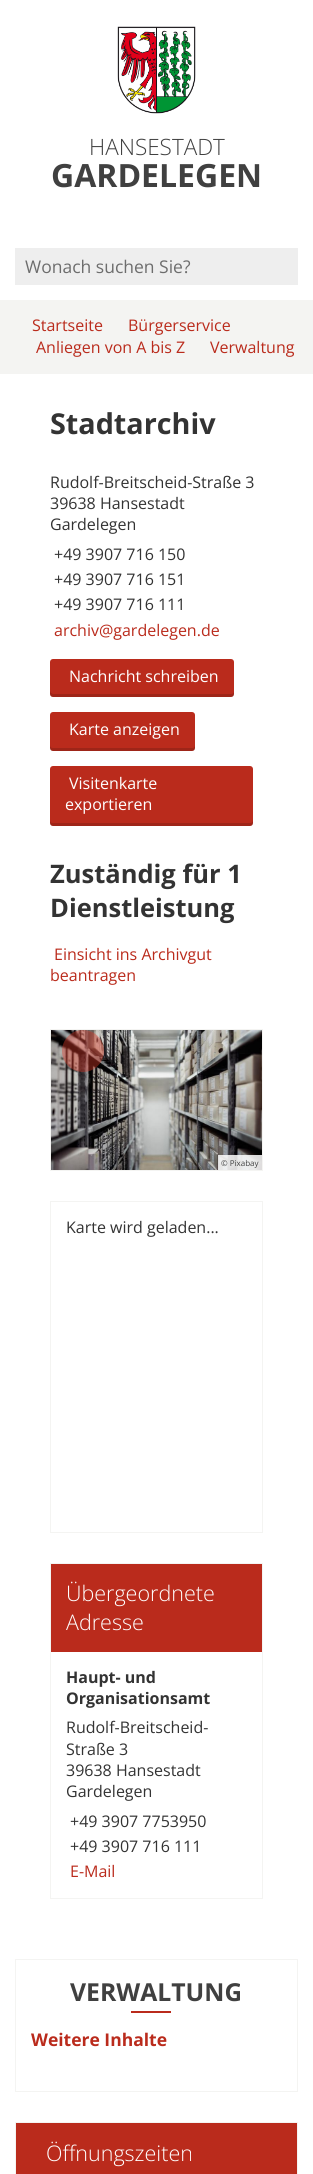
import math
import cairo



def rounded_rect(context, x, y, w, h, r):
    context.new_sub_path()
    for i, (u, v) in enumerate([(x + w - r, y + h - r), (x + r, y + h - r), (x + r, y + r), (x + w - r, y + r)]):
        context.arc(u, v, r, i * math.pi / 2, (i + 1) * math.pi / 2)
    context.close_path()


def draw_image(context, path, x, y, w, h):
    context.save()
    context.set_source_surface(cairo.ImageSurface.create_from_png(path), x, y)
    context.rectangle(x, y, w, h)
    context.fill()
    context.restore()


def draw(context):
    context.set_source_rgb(1, 1, 1)
    context.paint()
    draw_image(context, "images/1.png", 117, 26, 79, 88)
    context.set_source_rgb(238 / 255, 238 / 255, 238 / 255)
    context.rectangle(15, 248, 283, 37)
    context.fill()
    context.set_source_rgb(244 / 255, 244 / 255, 242 / 255)
    context.rectangle(0, 300, 313, 74)
    context.fill()
    context.set_source_rgb(186 / 255, 43 / 255, 28 / 255)
    rounded_rect(context, 50, 659, 184, 38, 3)
    context.fill()
    context.set_source_rgba(0, 0, 0, 0.15)
    context.new_path()
    context.move_to(50, 691)
    context.line_to(50, 694)
    context.curve_to(50, 696, 51, 697, 53, 697)
    context.line_to(231, 697)
    context.curve_to(233, 697, 234, 696, 234, 694)
    context.line_to(234, 691)
    context.curve_to(234, 693, 233, 694, 231, 694)
    context.line_to(53, 694)
    context.line_to(51, 693)
    context.close_path()
    context.fill()
    context.set_source_rgb(186 / 255, 43 / 255, 28 / 255)
    rounded_rect(context, 50, 712, 145, 39, 3)
    context.fill()
    context.set_source_rgba(0, 0, 0, 0.15)
    context.new_path()
    context.move_to(50, 745)
    context.line_to(50, 748)
    context.curve_to(50, 750, 51, 751, 53, 751)
    context.line_to(192, 751)
    context.curve_to(194, 751, 195, 750, 195, 748)
    context.line_to(195, 745)
    context.curve_to(195, 747, 194, 748, 192, 748)
    context.line_to(53, 748)
    context.curve_to(51, 748, 50, 747, 50, 745)
    context.close_path()
    context.fill()
    context.set_source_rgb(186 / 255, 43 / 255, 28 / 255)
    rounded_rect(context, 50, 766, 203, 60, 3)
    context.fill()
    context.set_source_rgba(0, 0, 0, 0.15)
    context.new_path()
    context.move_to(50, 820)
    context.line_to(50, 823)
    context.curve_to(50, 825, 51, 826, 53, 826)
    context.line_to(250, 826)
    context.curve_to(252, 826, 253, 825, 253, 823)
    context.line_to(253, 820)
    context.curve_to(253, 822, 252, 823, 250, 823)
    context.line_to(53, 823)
    context.curve_to(51, 823, 50, 822, 50, 820)
    context.close_path()
    context.fill()
    context.rectangle(50.5, 1029.5, 212, 141)
    context.set_source_rgb(244 / 255, 244 / 255, 242 / 255)
    context.set_line_width(1)
    context.stroke()
    draw_image(context, "images/2.png", 51, 1030, 211, 140)
    context.set_source_rgba(223 / 255, 59 / 255, 42 / 255, 0.4)
    context.arc(83, 1051, 21, 0, 2 * math.pi)
    context.fill()
    context.set_source_rgba(1, 1, 1, 0.85)
    context.rectangle(218, 1155, 44, 15)
    context.fill()
    context.rectangle(50.5, 1201.5, 212, 331)
    context.set_source_rgb(244 / 255, 244 / 255, 242 / 255)
    context.stroke()
    context.rectangle(50.5, 1563.5, 212, 335)
    context.stroke()
    context.set_source_rgb(186 / 255, 43 / 255, 28 / 255)
    context.rectangle(51, 1564, 211, 88)
    context.fill()
    context.rectangle(15.5, 1959.5, 282, 132)
    context.set_source_rgb(244 / 255, 244 / 255, 242 / 255)
    context.stroke()
    context.set_source_rgb(186 / 255, 43 / 255, 28 / 255)
    context.rectangle(131, 2011, 40, 2)
    context.fill()
    context.rectangle(15.5, 2122.5, 282, 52)
    context.set_source_rgb(244 / 255, 244 / 255, 242 / 255)
    context.stroke()
    context.set_source_rgb(186 / 255, 43 / 255, 28 / 255)
    context.rectangle(16, 2123, 281, 51)
    context.fill()
    context.select_font_face("Open Sans Light")
    context.set_font_size(22.5)
    context.set_source_rgb(64 / 255, 64 / 255, 64 / 255)
    context.move_to(89, 155)
    context.show_text("HANSESTADT")
    context.select_font_face("Open Sans", cairo.FontSlant.NORMAL, cairo.FontWeight.BOLD)
    context.set_font_size(32)
    context.move_to(51, 187)
    context.show_text("GARDELEGEN")
    context.select_font_face("Open Sans")
    context.set_font_size(17.5)
    context.set_source_rgb(109 / 255, 109 / 255, 109 / 255)
    context.move_to(25, 273)
    context.show_text("Wonach suchen Sie?")
    context.set_font_size(16)
    context.set_source_rgb(186 / 255, 43 / 255, 28 / 255)
    context.move_to(32, 331)
    context.show_text("Startseite")
    context.move_to(128, 331)
    context.show_text("Bürgerservice")
    context.move_to(36, 353)
    context.show_text("Anliegen von A bis Z")
    context.move_to(210, 353)
    context.show_text("Verwaltung")
    context.select_font_face("Open Sans", cairo.FontSlant.NORMAL, cairo.FontWeight.BOLD)
    context.set_font_size(28.75)
    context.set_source_rgb(51 / 255, 51 / 255, 51 / 255)
    context.move_to(50, 434)
    context.show_text("Stadtarchiv")
    context.select_font_face("Open Sans")
    context.set_font_size(16)
    context.move_to(50, 488)
    context.show_text("Rudolf-Breitscheid-Straße 3")
    context.move_to(50, 509)
    context.show_text("39638 Hansestadt")
    context.move_to(50, 530)
    context.show_text("Gardelegen")
    context.move_to(54, 560)
    context.show_text("+49 3907 716 150")
    context.move_to(54, 585)
    context.show_text("+49 3907 716 151")
    context.move_to(54, 610)
    context.show_text("+49 3907 716 111")
    context.set_source_rgb(186 / 255, 43 / 255, 28 / 255)
    context.move_to(54, 636)
    context.show_text("archiv@gardelegen.de")
    context.set_source_rgb(1, 1, 1)
    context.move_to(69, 682)
    context.show_text("Nachricht schreiben")
    context.move_to(69, 735)
    context.show_text("Karte anzeigen")
    context.move_to(69, 789)
    context.show_text("Visitenkarte")
    context.move_to(65, 810)
    context.show_text("exportieren")
    context.select_font_face("Open Sans", cairo.FontSlant.NORMAL, cairo.FontWeight.BOLD)
    context.set_font_size(25.5)
    context.set_source_rgb(51 / 255, 51 / 255, 51 / 255)
    context.move_to(50, 883)
    context.show_text("Zuständig für 1")
    context.move_to(50, 917)
    context.show_text("Dienstleistung")
    context.select_font_face("Open Sans")
    context.set_font_size(16)
    context.set_source_rgb(186 / 255, 43 / 255, 28 / 255)
    context.move_to(54, 960)
    context.show_text("Einsicht ins Archivgut")
    context.move_to(50, 981)
    context.show_text("beantragen")
    context.set_font_size(8)
    context.set_source_rgb(64 / 255, 64 / 255, 64 / 255)
    context.move_to(221, 1166)
    context.show_text("© Pixabay")
    context.set_font_size(16)
    context.set_source_rgb(51 / 255, 51 / 255, 51 / 255)
    context.move_to(66, 1233)
    context.show_text("Karte wird geladen...")
    context.select_font_face("Open Sans Light")
    context.set_font_size(21.5)
    context.set_source_rgb(1, 1, 1)
    context.move_to(66, 1601)
    context.show_text("Übergeordnete")
    context.move_to(66, 1630)
    context.show_text("Adresse")
    context.select_font_face("Open Sans", cairo.FontSlant.NORMAL, cairo.FontWeight.BOLD)
    context.set_font_size(16)
    context.set_source_rgb(51 / 255, 51 / 255, 51 / 255)
    context.move_to(66, 1683)
    context.show_text("Haupt- und")
    context.move_to(66, 1704)
    context.show_text("Organisationsamt")
    context.select_font_face("Open Sans")
    context.move_to(66, 1733)
    context.show_text("Rudolf-Breitscheid-")
    context.move_to(66, 1755)
    context.show_text("Straße 3")
    context.move_to(66, 1776)
    context.show_text("39638 Hansestadt")
    context.move_to(66, 1797)
    context.show_text("Gardelegen")
    context.move_to(70, 1827)
    context.show_text("+49 3907 7753950")
    context.move_to(70, 1852)
    context.show_text("+49 3907 716 111")
    context.set_source_rgb(186 / 255, 43 / 255, 28 / 255)
    context.move_to(70, 1877)
    context.show_text("E-Mail")
    context.select_font_face("Open Sans", cairo.FontSlant.NORMAL, cairo.FontWeight.BOLD)
    context.set_font_size(24.75)
    context.set_source_rgb(64 / 255, 64 / 255, 64 / 255)
    context.move_to(70, 2001)
    context.show_text("VERWALTUNG")
    context.set_font_size(17.5)
    context.set_source_rgb(186 / 255, 43 / 255, 28 / 255)
    context.move_to(31, 2046)
    context.show_text("Weitere Inhalte")
    context.select_font_face("Open Sans Light")
    context.set_font_size(21.5)
    context.set_source_rgb(1, 1, 1)
    context.move_to(46, 2161)
    context.show_text("Öffnungszeiten")


surface = cairo.ImageSurface(cairo.Format.RGB24, 313, 2174)
context = cairo.Context(surface)
options = cairo.FontOptions()
options.set_hint_metrics(cairo.HintMetrics.OFF)
options.set_hint_style(cairo.HintStyle.NONE)
context.set_font_options(options)
context.set_miter_limit(4)
draw(context)
surface.write_to_png("out.png")
